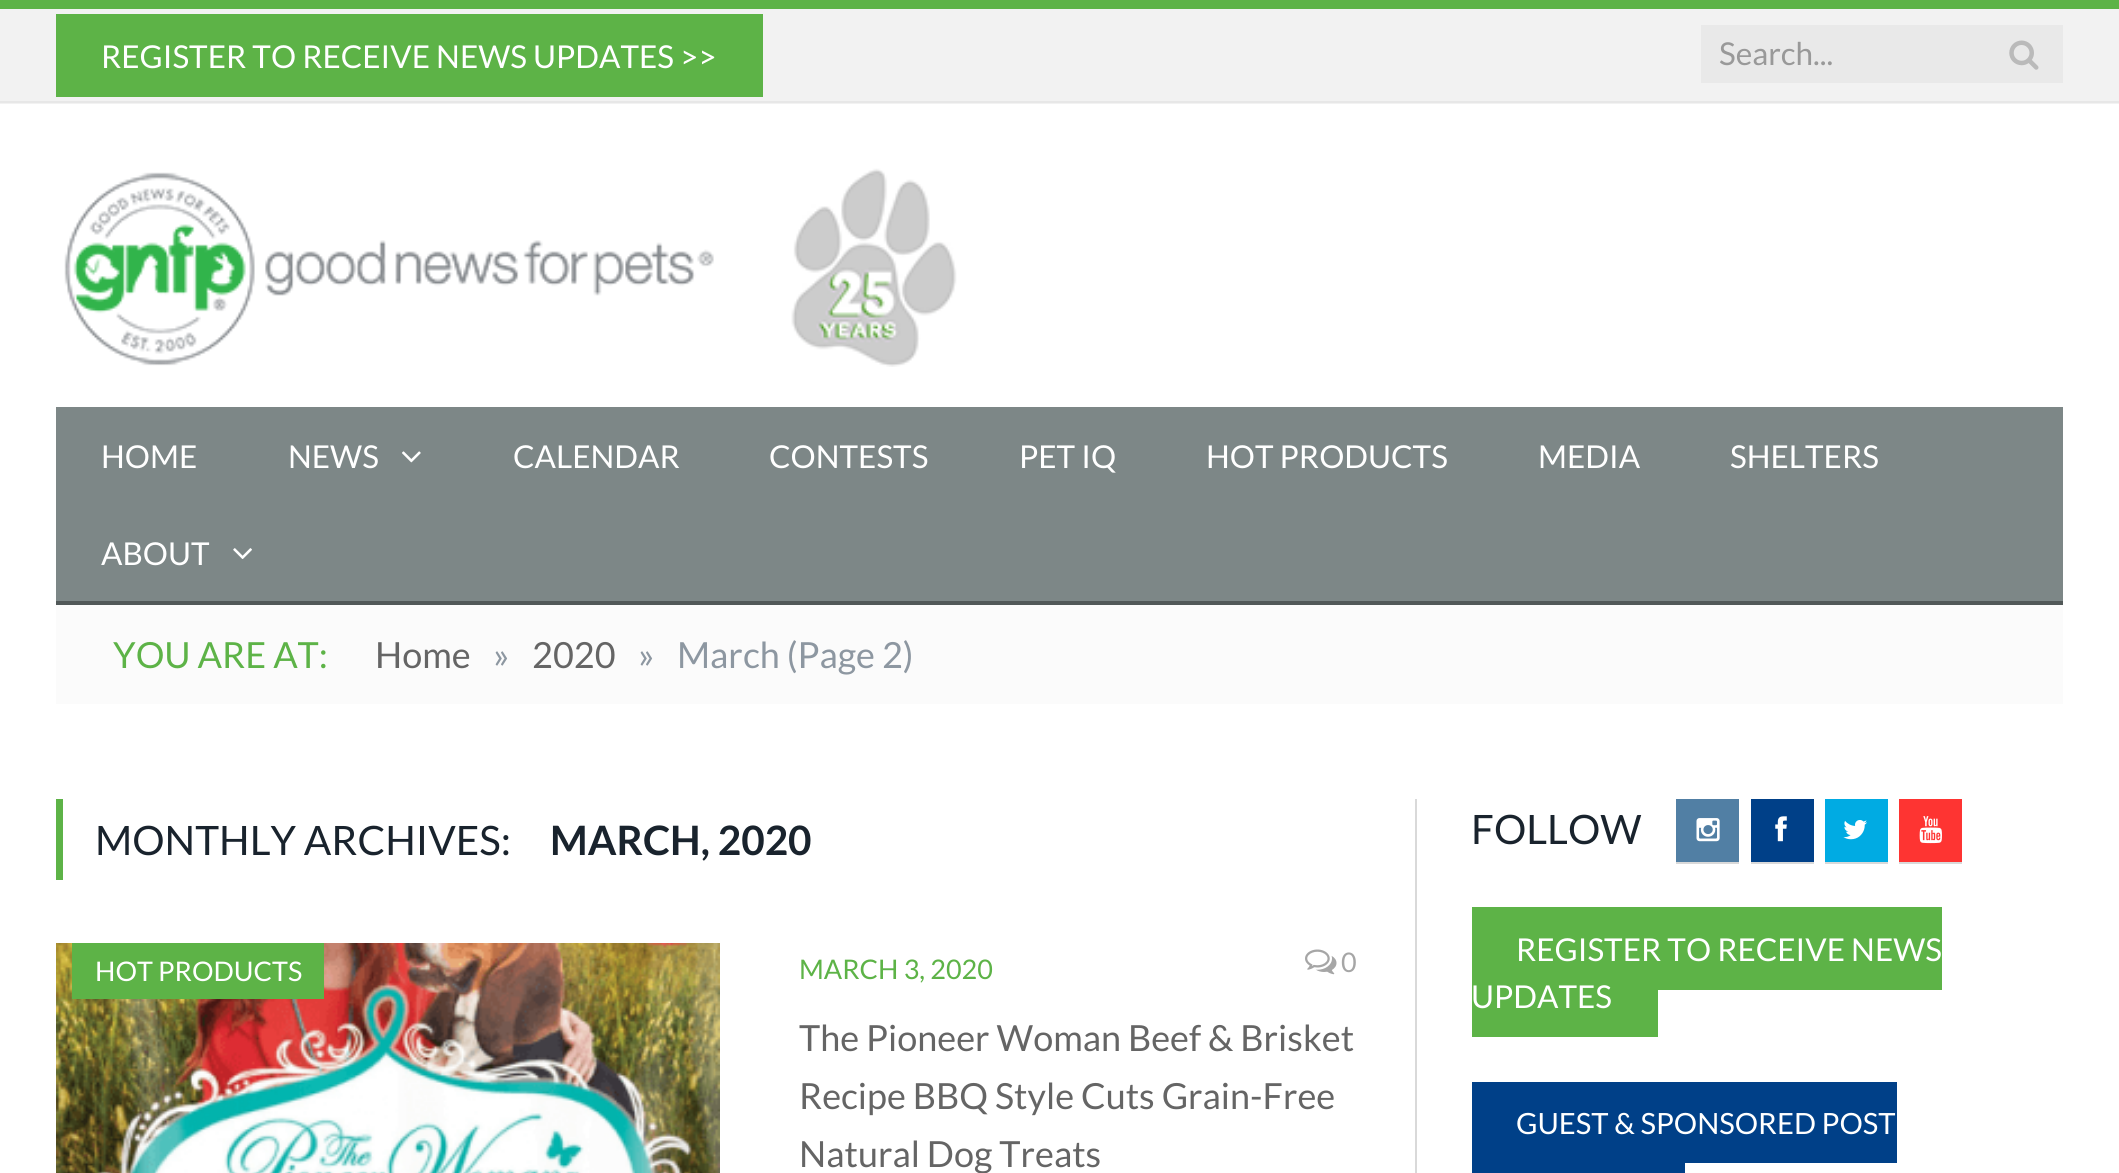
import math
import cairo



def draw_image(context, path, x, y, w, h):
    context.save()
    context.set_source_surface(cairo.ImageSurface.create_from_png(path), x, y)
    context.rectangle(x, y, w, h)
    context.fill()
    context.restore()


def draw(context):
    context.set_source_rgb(1, 1, 1)
    context.paint()
    context.set_source_rgb(242 / 255, 242 / 255, 242 / 255)
    context.rectangle(0, 9, 2119, 95)
    context.fill()
    context.set_source_rgb(93 / 255, 179 / 255, 71 / 255)
    context.rectangle(0, 0, 2119, 9)
    context.fill()
    context.set_source_rgb(231 / 255, 231 / 255, 231 / 255)
    context.rectangle(0, 101, 2119, 2)
    context.fill()
    context.set_source_rgb(93 / 255, 179 / 255, 71 / 255)
    context.rectangle(56, 14, 707, 83)
    context.fill()
    context.set_source_rgb(233 / 255, 233 / 255, 233 / 255)
    context.rectangle(1701, 25, 362, 58)
    context.fill()
    draw_image(context, "images/1.png", 2009, 40, 30, 30)
    draw_image(context, "images/2.png", 64, 168, 893, 199)
    context.set_source_rgb(125 / 255, 135 / 255, 135 / 255)
    context.rectangle(56, 407, 2007, 194)
    context.fill()
    context.set_source_rgb(81 / 255, 88 / 255, 88 / 255)
    context.rectangle(56, 601, 2007, 4)
    context.fill()
    draw_image(context, "images/3.png", 402, 451, 19, 12)
    draw_image(context, "images/4.png", 233, 548, 19, 11)
    context.set_source_rgb(251 / 255, 251 / 255, 251 / 255)
    context.rectangle(56, 605, 2007, 99)
    context.fill()
    context.set_source_rgb(93 / 255, 179 / 255, 71 / 255)
    context.rectangle(56, 799, 7, 81)
    context.fill()
    draw_image(context, "images/5.png", 56, 943, 664, 230)
    draw_image(context, "images/6.png", 1305, 949, 32, 26)
    context.rectangle(72, 943, 252, 56)
    context.fill()
    context.set_source_rgb(217 / 255, 217 / 255, 217 / 255)
    context.rectangle(1415, 799, 2, 374)
    context.fill()
    context.rectangle(1676, 862, 63, 2)
    context.fill()
    context.set_source_rgb(81 / 255, 127 / 255, 164 / 255)
    context.rectangle(1676, 799, 63, 63)
    context.fill()
    draw_image(context, "images/7.png", 1696, 818, 24, 24)
    context.set_source_rgb(217 / 255, 217 / 255, 217 / 255)
    context.rectangle(1751, 862, 63, 2)
    context.fill()
    context.set_source_rgb(0, 64 / 255, 136 / 255)
    context.rectangle(1751, 799, 63, 63)
    context.fill()
    draw_image(context, "images/8.png", 1775, 816, 12, 26)
    context.set_source_rgb(217 / 255, 217 / 255, 217 / 255)
    context.rectangle(1825, 862, 63, 2)
    context.fill()
    context.set_source_rgb(0, 171 / 255, 227 / 255)
    context.rectangle(1825, 799, 63, 63)
    context.fill()
    draw_image(context, "images/9.png", 1843, 820, 24, 20)
    context.set_source_rgb(217 / 255, 217 / 255, 217 / 255)
    context.rectangle(1899, 862, 63, 2)
    context.fill()
    context.set_source_rgb(254 / 255, 52 / 255, 50 / 255)
    context.rectangle(1899, 799, 63, 63)
    context.fill()
    draw_image(context, "images/10.png", 1919, 816, 23, 28)
    context.set_source_rgb(93 / 255, 179 / 255, 71 / 255)
    context.rectangle(1472, 907, 470, 83)
    context.fill()
    context.rectangle(1472, 990, 186, 47)
    context.fill()
    context.set_source_rgb(0, 64 / 255, 136 / 255)
    context.rectangle(1472, 1082, 425, 81)
    context.fill()
    context.rectangle(1472, 1163, 213, 10)
    context.fill()
    context.select_font_face("Lato")
    context.set_font_size(31.5)
    context.set_source_rgb(1, 1, 1)
    context.move_to(101, 68)
    context.show_text("REGISTER TO RECEIVE NEWS UPDATES >>")
    context.set_source_rgb(153 / 255, 153 / 255, 153 / 255)
    context.move_to(1719, 65)
    context.show_text("Search...")
    context.set_source_rgb(1, 1, 1)
    context.move_to(101, 468)
    context.show_text("HOME")
    context.move_to(288, 468)
    context.show_text("NEWS")
    context.move_to(513, 468)
    context.show_text("CALENDAR")
    context.move_to(769, 468)
    context.show_text("CONTESTS")
    context.move_to(1019, 468)
    context.show_text("PET IQ")
    context.move_to(1206, 468)
    context.show_text("HOT PRODUCTS")
    context.move_to(1538, 468)
    context.show_text("MEDIA")
    context.move_to(1730, 468)
    context.show_text("SHELTERS")
    context.move_to(101, 565)
    context.show_text("ABOUT")
    context.set_font_size(36)
    context.set_source_rgb(93 / 255, 179 / 255, 71 / 255)
    context.move_to(113, 668)
    context.show_text("YOU ARE AT:")
    context.set_source_rgb(101 / 255, 101 / 255, 101 / 255)
    context.move_to(375, 668)
    context.show_text("Home")
    context.set_source_rgb(141 / 255, 151 / 255, 161 / 255)
    context.move_to(493, 668)
    context.show_text("»")
    context.set_source_rgb(101 / 255, 101 / 255, 101 / 255)
    context.move_to(532, 668)
    context.show_text("2020")
    context.set_source_rgb(141 / 255, 151 / 255, 161 / 255)
    context.move_to(638, 668)
    context.show_text("»")
    context.move_to(677, 668)
    context.show_text("March (Page 2)")
    context.set_font_size(40.5)
    context.set_source_rgb(25 / 255, 35 / 255, 45 / 255)
    context.move_to(95, 855)
    context.show_text("MONTHLY ARCHIVES:")
    context.select_font_face("Lato", cairo.FontSlant.NORMAL, cairo.FontWeight.BOLD)
    context.move_to(550, 855)
    context.show_text("MARCH, 2020")
    context.select_font_face("Lato")
    context.set_font_size(27)
    context.set_source_rgb(93 / 255, 179 / 255, 71 / 255)
    context.move_to(799, 979)
    context.show_text("MARCH 3, 2020")
    context.set_source_rgb(166 / 255, 166 / 255, 166 / 255)
    context.move_to(1341, 972)
    context.show_text("0")
    context.set_font_size(36)
    context.set_source_rgb(101 / 255, 101 / 255, 101 / 255)
    context.move_to(799, 1051)
    context.show_text("The Pioneer Woman Beef & Brisket")
    context.move_to(799, 1109)
    context.show_text("Recipe BBQ Style Cuts Grain-Free")
    context.move_to(799, 1167)
    context.show_text("Natural Dog Treats")
    context.set_font_size(27)
    context.set_source_rgb(1, 1, 1)
    context.move_to(95, 981)
    context.show_text("HOT PRODUCTS")
    context.set_font_size(40.5)
    context.set_source_rgb(25 / 255, 35 / 255, 45 / 255)
    context.move_to(1471, 844)
    context.show_text("FOLLOW")
    context.set_font_size(31.5)
    context.set_source_rgb(1, 1, 1)
    context.move_to(1516, 961)
    context.show_text("REGISTER TO RECEIVE NEWS")
    context.move_to(1471, 1008)
    context.show_text("UPDATES")
    context.set_font_size(29.25)
    context.move_to(1516, 1134)
    context.show_text("GUEST & SPONSORED POST")


surface = cairo.ImageSurface(cairo.Format.RGB24, 2119, 1173)
context = cairo.Context(surface)
options = cairo.FontOptions()
options.set_hint_metrics(cairo.HintMetrics.OFF)
options.set_hint_style(cairo.HintStyle.NONE)
context.set_font_options(options)
context.set_miter_limit(4)
draw(context)
surface.write_to_png("out.png")
